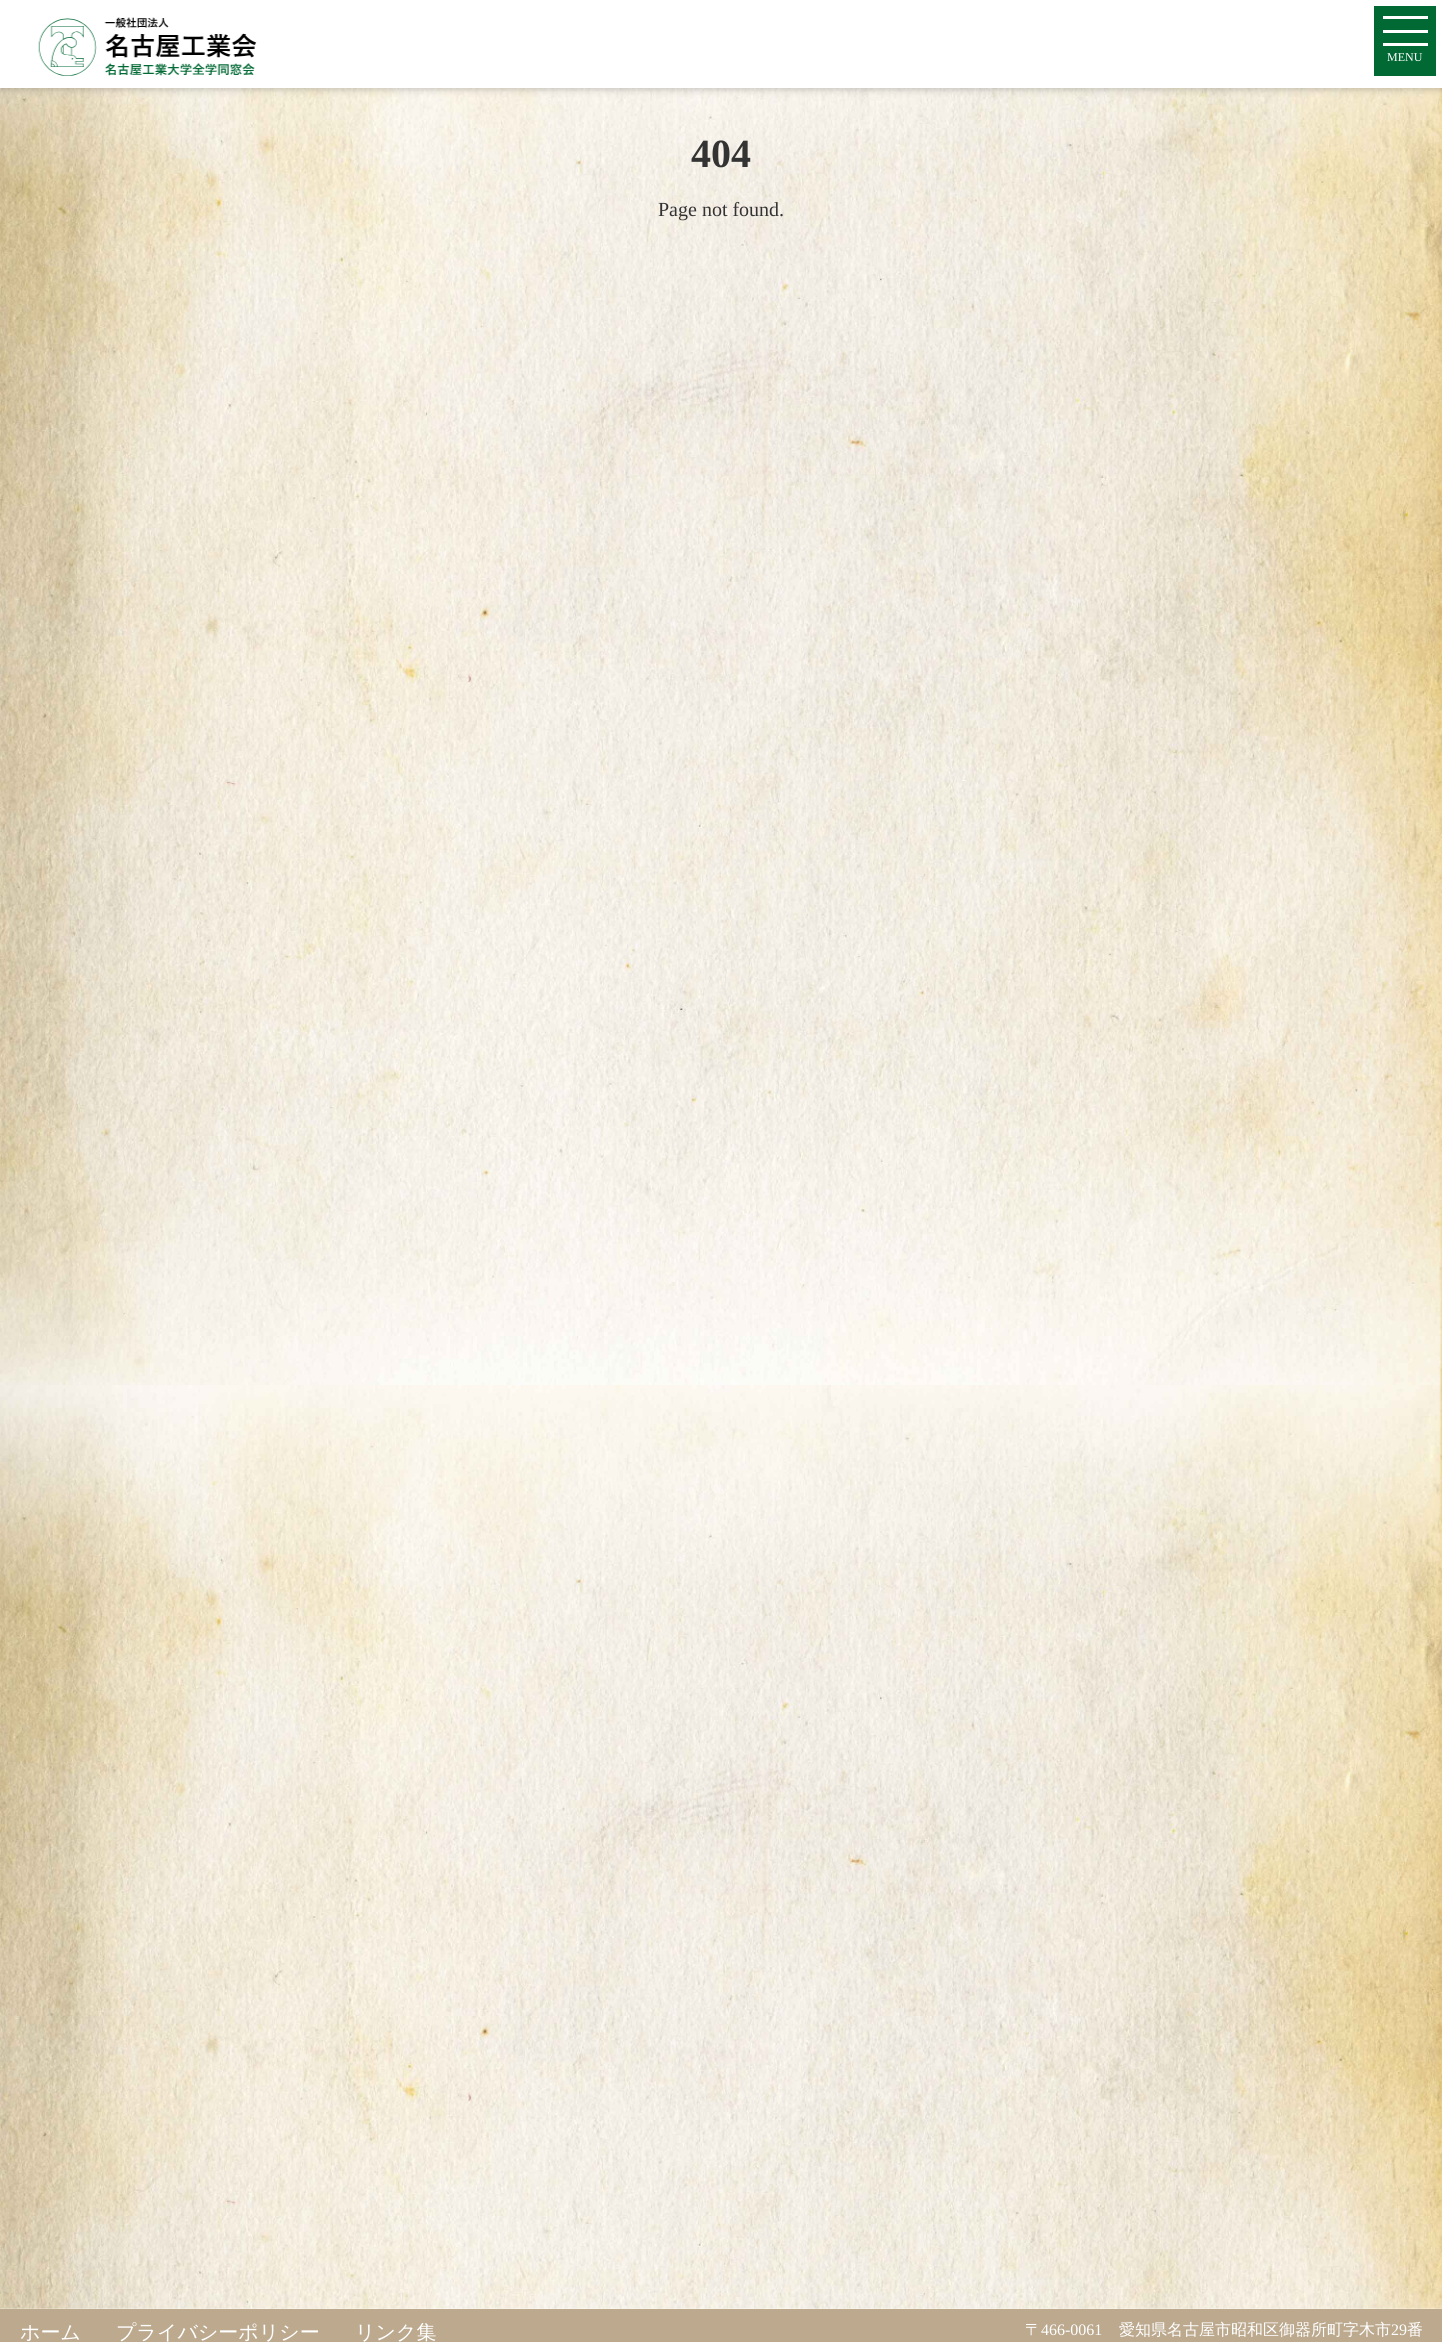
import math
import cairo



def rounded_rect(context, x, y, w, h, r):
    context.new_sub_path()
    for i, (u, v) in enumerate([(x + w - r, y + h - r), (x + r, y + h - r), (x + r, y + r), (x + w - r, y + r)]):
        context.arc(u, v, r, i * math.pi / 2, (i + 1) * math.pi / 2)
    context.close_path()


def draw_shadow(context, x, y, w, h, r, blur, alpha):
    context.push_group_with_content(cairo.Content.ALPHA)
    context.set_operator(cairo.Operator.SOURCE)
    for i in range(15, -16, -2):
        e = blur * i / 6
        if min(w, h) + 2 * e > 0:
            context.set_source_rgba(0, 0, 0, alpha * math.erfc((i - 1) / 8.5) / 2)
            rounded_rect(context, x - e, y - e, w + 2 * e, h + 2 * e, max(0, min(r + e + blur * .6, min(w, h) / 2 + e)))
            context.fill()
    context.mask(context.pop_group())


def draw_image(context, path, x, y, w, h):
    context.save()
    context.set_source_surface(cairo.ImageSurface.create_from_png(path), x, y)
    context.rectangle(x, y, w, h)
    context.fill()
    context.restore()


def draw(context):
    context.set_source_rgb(1, 1, 1)
    context.paint()
    draw_image(context, "images/1.png", 0, 88, 1442, 2221)
    context.set_source_rgb(32 / 255, 33 / 255, 36 / 255)
    draw_shadow(context, 0, 1, 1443, 88, 0, 4, 0.28)
    context.set_source_rgb(1, 1, 1)
    context.rectangle(0, 0, 1442, 88)
    context.fill()
    draw_image(context, "images/2.png", 38, 17, 219, 59)
    context.set_source_rgb(0, 105 / 255, 52 / 255)
    context.rectangle(1374, 6, 62, 70)
    context.fill()
    context.set_source_rgb(1, 1, 1)
    context.rectangle(1383, 16, 45, 3)
    context.fill()
    context.rectangle(1383, 30, 45, 3)
    context.fill()
    context.rectangle(1383, 43, 45, 3)
    context.fill()
    context.set_source_rgb(188 / 255, 169 / 255, 142 / 255)
    context.rectangle(0, 2309, 1442, 33)
    context.fill()
    context.select_font_face("Liberation Serif")
    context.set_font_size(12)
    context.set_source_rgb(1, 1, 1)
    context.move_to(1387, 61)
    context.show_text("MENU")
    context.select_font_face("Liberation Serif", cairo.FontSlant.NORMAL, cairo.FontWeight.BOLD)
    context.set_font_size(40)
    context.set_source_rgb(51 / 255, 51 / 255, 51 / 255)
    context.move_to(691, 167)
    context.show_text("404")
    context.select_font_face("Liberation Serif")
    context.set_font_size(20)
    context.move_to(658, 216)
    context.show_text("Page not found.")
    context.select_font_face("WenQuanYi Zen Hei Medium")
    context.set_source_rgb(1, 1, 1)
    context.move_to(20, 2339)
    context.show_text("ホーム")
    context.move_to(116, 2339)
    context.show_text("プライバシーポリシー")
    context.move_to(355, 2339)
    context.show_text("リンク集")
    context.set_font_size(16)
    context.move_to(1025, 2335)
    context.show_text("〒")
    context.select_font_face("Liberation Serif")
    context.move_to(1041, 2335)
    context.show_text("466-0061")
    context.select_font_face("WenQuanYi Zen Hei Medium")
    context.move_to(1119, 2335)
    context.show_text("愛知県名古屋市昭和区御器所町字木市")
    context.select_font_face("Liberation Serif")
    context.move_to(1391, 2335)
    context.show_text("29")
    context.select_font_face("WenQuanYi Zen Hei Medium")
    context.move_to(1407, 2335)
    context.show_text("番")


surface = cairo.ImageSurface(cairo.Format.RGB24, 1442, 2342)
context = cairo.Context(surface)
options = cairo.FontOptions()
options.set_hint_metrics(cairo.HintMetrics.OFF)
options.set_hint_style(cairo.HintStyle.NONE)
context.set_font_options(options)
context.set_miter_limit(4)
draw(context)
surface.write_to_png("out.png")
